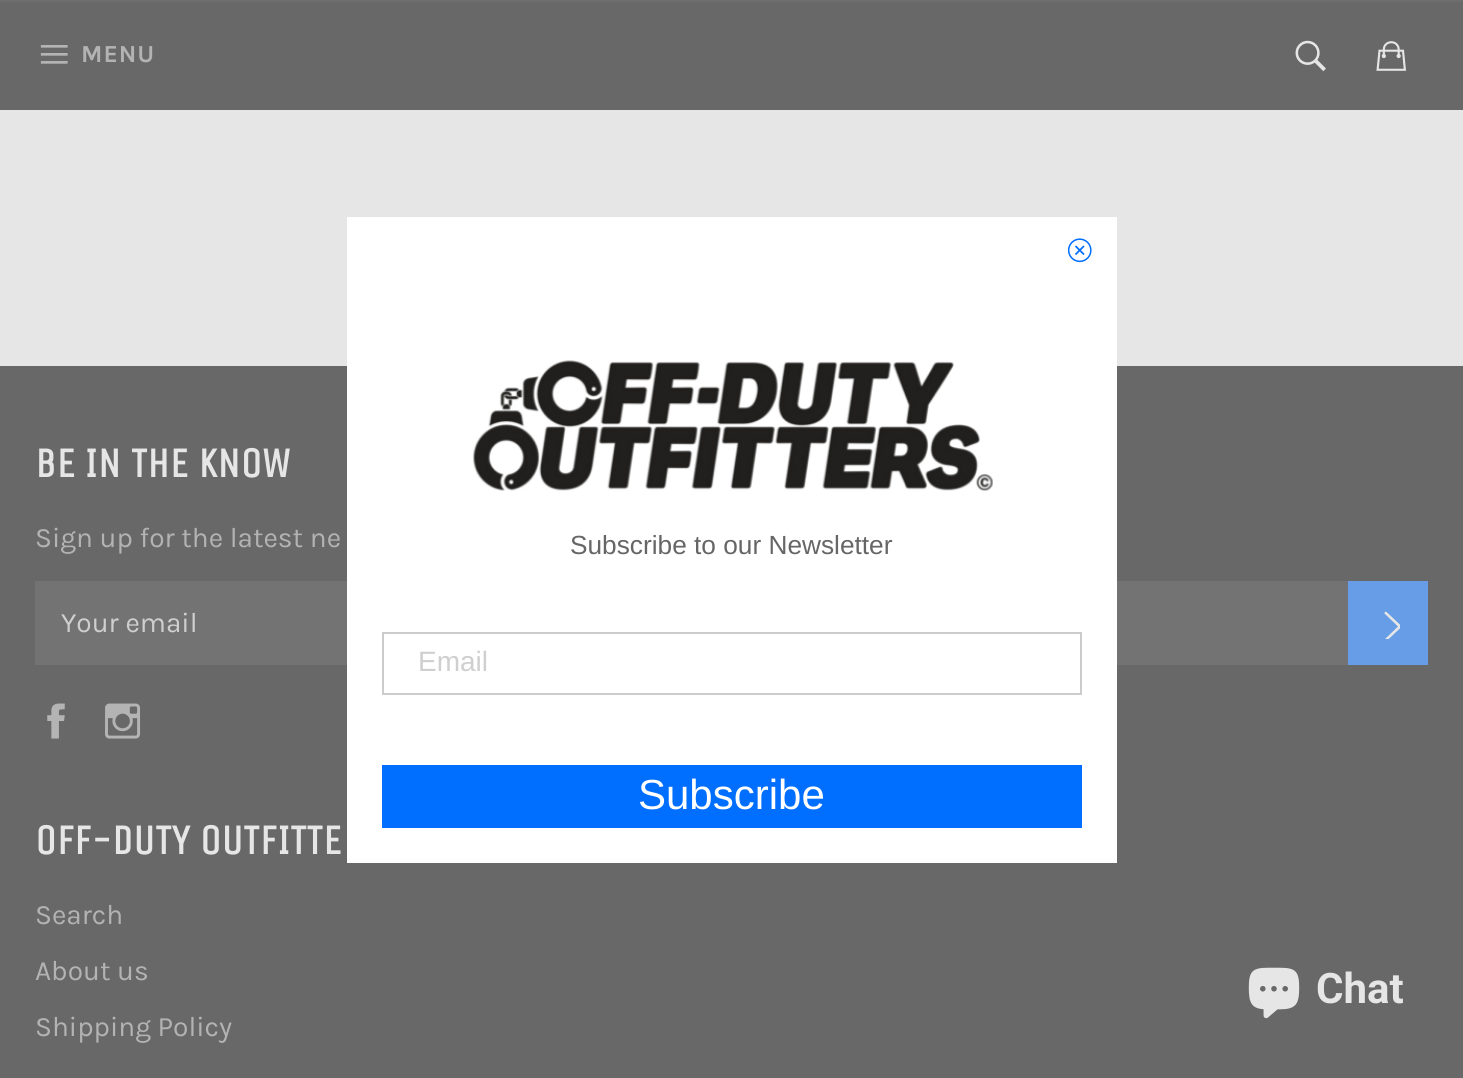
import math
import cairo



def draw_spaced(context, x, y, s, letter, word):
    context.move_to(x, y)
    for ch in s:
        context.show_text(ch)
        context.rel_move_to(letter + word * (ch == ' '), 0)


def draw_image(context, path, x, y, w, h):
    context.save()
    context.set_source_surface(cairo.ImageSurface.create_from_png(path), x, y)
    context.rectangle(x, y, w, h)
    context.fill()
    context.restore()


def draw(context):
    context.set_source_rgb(230 / 255, 230 / 255, 230 / 255)
    context.paint()
    context.set_source_rgb(104 / 255, 104 / 255, 104 / 255)
    context.rectangle(0, 2, 1463, 108)
    context.fill()
    context.set_source_rgb(110 / 255, 110 / 255, 110 / 255)
    context.rectangle(0, 0, 1463, 2)
    context.fill()
    draw_image(context, "images/1.png", 40, 45, 28, 19)
    draw_image(context, "images/2.png", 1295, 40, 31, 32)
    draw_image(context, "images/3.png", 1376, 41, 31, 30)
    context.set_source_rgb(104 / 255, 104 / 255, 104 / 255)
    context.rectangle(0, 366, 1463, 712)
    context.fill()
    context.set_source_rgb(115 / 255, 115 / 255, 115 / 255)
    context.rectangle(35, 581, 1313, 84)
    context.fill()
    context.set_source_rgb(102 / 255, 157 / 255, 230 / 255)
    context.rectangle(1348, 581, 80, 84)
    context.fill()
    context.save()
    context.rectangle(1376, 609, 24, 30)
    context.clip()
    context.set_source_rgb(230 / 255, 230 / 255, 230 / 255)
    context.new_path()
    context.move_to(1384, 613)
    context.line_to(1386, 611.5)
    context.line_to(1402, 626.5)
    context.line_to(1386, 641.5)
    context.line_to(1384, 640)
    context.line_to(1398, 626.5)
    context.close_path()
    context.fill()
    context.restore()
    draw_image(context, "images/4.png", 47, 703, 18, 36)
    draw_image(context, "images/5.png", 105, 703, 36, 36)
    context.set_source_rgb(1, 1, 1)
    context.rectangle(347, 217, 770, 646)
    context.fill()
    draw_image(context, "images/6.png", 1068, 238, 24, 25)
    draw_image(context, "images/7.png", 472, 360, 521, 131)
    context.rectangle(383, 633, 698, 61)
    context.set_source_rgb(204 / 255, 204 / 255, 204 / 255)
    context.stroke()
    context.set_source_rgb(0, 110 / 255, 1)
    context.rectangle(382, 765, 700, 63)
    context.fill()
    draw_image(context, "images/8.png", 1248, 967, 52, 52)
    context.select_font_face("Karla", cairo.FontSlant.NORMAL, cairo.FontWeight.BOLD)
    context.set_font_size(24.5)
    context.set_source_rgb(179 / 255, 179 / 255, 179 / 255)
    draw_spaced(context, 81, 62, "MENU", 1, 0)
    context.select_font_face("Unica One", cairo.FontSlant.NORMAL, cairo.FontWeight.BOLD)
    context.set_font_size(42)
    context.set_source_rgb(230 / 255, 230 / 255, 230 / 255)
    context.move_to(35, 477)
    context.show_text("BE IN THE KNOW")
    context.select_font_face("Karla")
    context.set_font_size(28)
    context.set_source_rgb(179 / 255, 179 / 255, 179 / 255)
    context.move_to(35, 547)
    context.show_text("Sign up for the latest ne")
    context.set_source_rgb(207 / 255, 207 / 255, 207 / 255)
    context.move_to(61, 632)
    context.show_text("Your email")
    context.select_font_face("Unica One", cairo.FontSlant.NORMAL, cairo.FontWeight.BOLD)
    context.set_font_size(42)
    context.set_source_rgb(230 / 255, 230 / 255, 230 / 255)
    context.move_to(35, 854)
    context.show_text("OFF-DUTY OUTFITTE")
    context.select_font_face("Karla")
    context.set_font_size(28)
    context.set_source_rgb(179 / 255, 179 / 255, 179 / 255)
    context.move_to(35, 924)
    context.show_text("Search")
    context.move_to(35, 980)
    context.show_text("About us")
    context.move_to(35, 1036)
    context.show_text("Shipping Policy")
    context.select_font_face("Liberation Sans")
    context.set_font_size(26.25)
    context.set_source_rgb(102 / 255, 102 / 255, 102 / 255)
    context.move_to(570, 554)
    context.show_text("Subscribe to our Newsletter")
    context.set_font_size(28)
    context.set_source_rgb(207 / 255, 207 / 255, 207 / 255)
    context.move_to(418, 671)
    context.show_text("Email")
    context.set_font_size(42)
    context.set_source_rgb(1, 1, 1)
    context.move_to(638, 809)
    context.show_text("Subscribe")
    context.select_font_face("Roboto", cairo.FontSlant.NORMAL, cairo.FontWeight.BOLD)
    context.set_source_rgb(230 / 255, 230 / 255, 230 / 255)
    context.move_to(1316, 1003)
    context.show_text("Chat")


surface = cairo.ImageSurface(cairo.Format.RGB24, 1463, 1078)
context = cairo.Context(surface)
options = cairo.FontOptions()
options.set_hint_metrics(cairo.HintMetrics.OFF)
options.set_hint_style(cairo.HintStyle.NONE)
context.set_font_options(options)
context.set_miter_limit(4)
draw(context)
surface.write_to_png("out.png")
